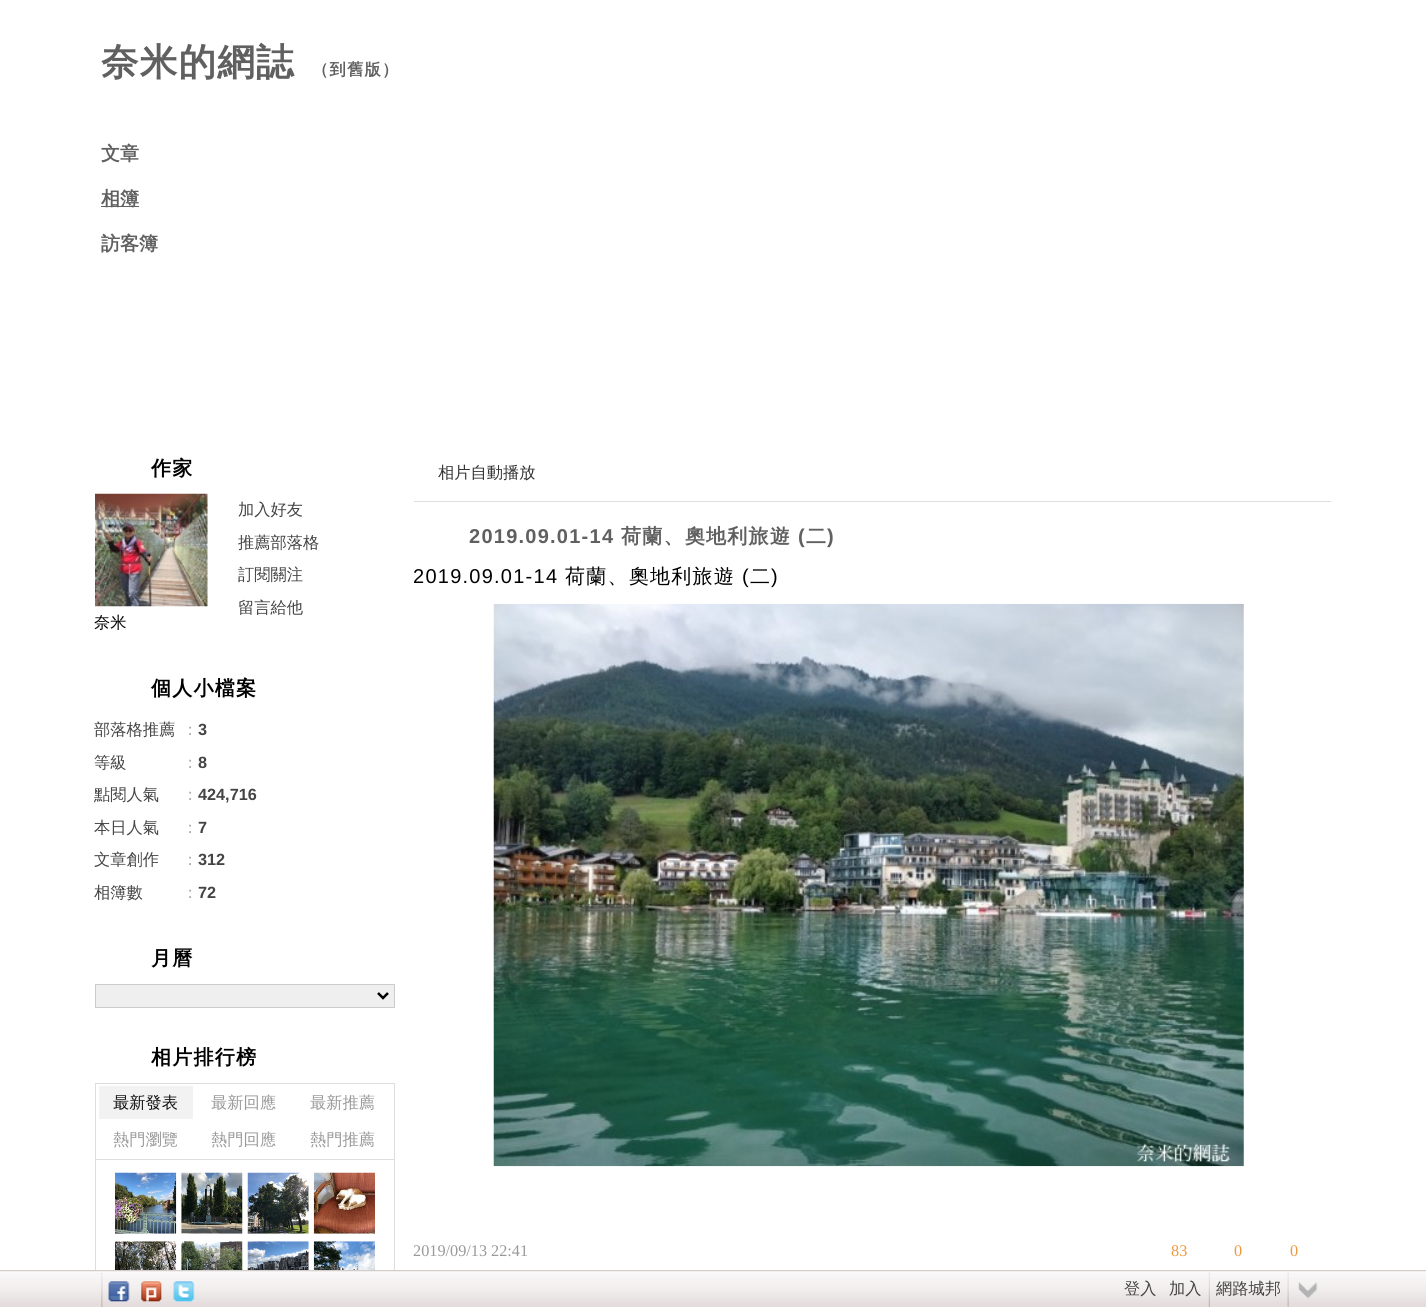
import math
import cairo



def draw_spaced(context, x, y, s, letter, word):
    context.move_to(x, y)
    for ch in s:
        context.show_text(ch)
        context.rel_move_to(letter + word * (ch == ' '), 0)


def draw_image(context, path, x, y, w, h):
    context.save()
    context.set_source_surface(cairo.ImageSurface.create_from_png(path), x, y)
    context.rectangle(x, y, w, h)
    context.fill()
    context.restore()


def draw(context):
    context.set_source_rgb(1, 1, 1)
    context.paint()
    context.set_source_rgb(96 / 255, 96 / 255, 96 / 255)
    context.rectangle(101, 206, 38, 1)
    context.fill()
    draw_image(context, "images/1.png", 95, 493, 113, 114)
    context.set_source_rgb(239 / 255, 239 / 255, 239 / 255)
    context.rectangle(95.5, 984.5, 299, 23)
    context.fill_preserve()
    context.set_source_rgb(204 / 255, 204 / 255, 204 / 255)
    context.set_line_width(1)
    context.stroke()
    context.new_path()
    context.move_to(378, 993)
    context.line_to(383, 998)
    context.line_to(388, 993)
    context.set_source_rgb(0, 0, 0)
    context.set_line_width(2.5)
    context.stroke()
    context.rectangle(95.5, 1083.5, 299, 76)
    context.set_source_rgb(221 / 255, 221 / 255, 221 / 255)
    context.set_line_width(1)
    context.stroke()
    context.set_source_rgb(242 / 255, 242 / 255, 242 / 255)
    context.rectangle(99, 1086, 94, 33)
    context.fill()
    context.set_source_rgb(221 / 255, 221 / 255, 221 / 255)
    context.rectangle(394, 1160, 1, 110)
    context.fill()
    context.rectangle(95, 1160, 1, 110)
    context.fill()
    draw_image(context, "images/2.png", 115, 1172, 62, 62)
    draw_image(context, "images/3.png", 181, 1172, 62, 62)
    draw_image(context, "images/4.png", 247, 1172, 62, 62)
    draw_image(context, "images/5.png", 313, 1172, 62, 62)
    draw_image(context, "images/6.png", 115, 1241, 62, 29)
    draw_image(context, "images/7.png", 181, 1241, 62, 29)
    draw_image(context, "images/8.png", 247, 1241, 62, 29)
    draw_image(context, "images/9.png", 313, 1241, 62, 29)
    context.rectangle(414, 501, 917, 1)
    context.fill()
    draw_image(context, "images/10.png", 493, 603, 751, 564)
    draw_image(context, "images/11.png", 0, 1270, 1426, 37)
    draw_image(context, "images/12.png", 101, 1272, 2, 35)
    draw_image(context, "images/13.png", 108, 1281, 22, 21)
    draw_image(context, "images/14.png", 141, 1281, 21, 21)
    draw_image(context, "images/15.png", 173, 1281, 22, 21)
    draw_image(context, "images/16.png", 1208, 1272, 2, 35)
    draw_image(context, "images/17.png", 1287, 1272, 2, 35)
    draw_image(context, "images/18.png", 1298, 1282, 20, 17)
    context.select_font_face("WenQuanYi Zen Hei", cairo.FontSlant.NORMAL, cairo.FontWeight.BOLD)
    context.set_font_size(37.5)
    context.set_source_rgb(96 / 255, 96 / 255, 96 / 255)
    draw_spaced(context, 101, 75, "奈米的網誌", 1.25, 0)
    context.set_font_size(16.25)
    draw_spaced(context, 312, 75, "（到舊版）", 1.25, 0)
    context.set_font_size(19)
    context.move_to(101, 160)
    context.show_text("文章")
    context.move_to(101, 205)
    context.show_text("相簿")
    context.move_to(101, 250)
    context.show_text("訪客簿")
    context.set_font_size(20)
    context.set_source_rgb(0, 0, 0)
    draw_spaced(context, 151, 475, "作家", 1.25, 0)
    context.select_font_face("WenQuanYi Zen Hei Medium")
    context.set_font_size(16.25)
    context.set_source_rgb(68 / 255, 68 / 255, 68 / 255)
    context.move_to(238, 515)
    context.show_text("加入好友")
    context.move_to(238, 548)
    context.show_text("推薦部落格")
    context.move_to(238, 580)
    context.show_text("訂閱關注")
    context.move_to(238, 613)
    context.show_text("留言給他")
    context.set_source_rgb(0, 0, 0)
    context.move_to(94, 628)
    context.show_text("奈米")
    context.select_font_face("WenQuanYi Zen Hei", cairo.FontSlant.NORMAL, cairo.FontWeight.BOLD)
    context.set_font_size(20)
    draw_spaced(context, 151, 695, "個人小檔案", 1.25, 0)
    context.select_font_face("WenQuanYi Zen Hei Medium")
    context.set_font_size(16.25)
    context.set_source_rgb(68 / 255, 68 / 255, 68 / 255)
    context.move_to(94, 735)
    context.show_text("部落格推薦")
    context.set_source_rgb(170 / 255, 170 / 255, 170 / 255)
    context.move_to(182, 735)
    context.show_text("：")
    context.select_font_face("Liberation Sans", cairo.FontSlant.NORMAL, cairo.FontWeight.BOLD)
    context.set_source_rgb(68 / 255, 68 / 255, 68 / 255)
    context.move_to(198, 735)
    context.show_text("3")
    context.select_font_face("WenQuanYi Zen Hei Medium")
    context.move_to(94, 768)
    context.show_text("等級")
    context.set_source_rgb(170 / 255, 170 / 255, 170 / 255)
    context.move_to(182, 768)
    context.show_text("：")
    context.select_font_face("Liberation Sans", cairo.FontSlant.NORMAL, cairo.FontWeight.BOLD)
    context.set_source_rgb(68 / 255, 68 / 255, 68 / 255)
    context.move_to(198, 768)
    context.show_text("8")
    context.select_font_face("WenQuanYi Zen Hei Medium")
    context.move_to(94, 800)
    context.show_text("點閱人氣")
    context.set_source_rgb(170 / 255, 170 / 255, 170 / 255)
    context.move_to(182, 800)
    context.show_text("：")
    context.select_font_face("Liberation Sans", cairo.FontSlant.NORMAL, cairo.FontWeight.BOLD)
    context.set_source_rgb(68 / 255, 68 / 255, 68 / 255)
    context.move_to(198, 800)
    context.show_text("424,716")
    context.select_font_face("WenQuanYi Zen Hei Medium")
    context.move_to(94, 833)
    context.show_text("本日人氣")
    context.set_source_rgb(170 / 255, 170 / 255, 170 / 255)
    context.move_to(182, 833)
    context.show_text("：")
    context.select_font_face("Liberation Sans", cairo.FontSlant.NORMAL, cairo.FontWeight.BOLD)
    context.set_source_rgb(68 / 255, 68 / 255, 68 / 255)
    context.move_to(198, 833)
    context.show_text("7")
    context.select_font_face("WenQuanYi Zen Hei Medium")
    context.move_to(94, 865)
    context.show_text("文章創作")
    context.set_source_rgb(170 / 255, 170 / 255, 170 / 255)
    context.move_to(182, 865)
    context.show_text("：")
    context.select_font_face("Liberation Sans", cairo.FontSlant.NORMAL, cairo.FontWeight.BOLD)
    context.set_source_rgb(68 / 255, 68 / 255, 68 / 255)
    context.move_to(198, 865)
    context.show_text("312")
    context.select_font_face("WenQuanYi Zen Hei Medium")
    context.move_to(94, 898)
    context.show_text("相簿數")
    context.set_source_rgb(170 / 255, 170 / 255, 170 / 255)
    context.move_to(182, 898)
    context.show_text("：")
    context.select_font_face("Liberation Sans", cairo.FontSlant.NORMAL, cairo.FontWeight.BOLD)
    context.set_source_rgb(68 / 255, 68 / 255, 68 / 255)
    context.move_to(198, 898)
    context.show_text("72")
    context.select_font_face("WenQuanYi Zen Hei", cairo.FontSlant.NORMAL, cairo.FontWeight.BOLD)
    context.set_font_size(20)
    context.set_source_rgb(0, 0, 0)
    draw_spaced(context, 151, 965, "月曆", 1.25, 0)
    draw_spaced(context, 151, 1064, "相片排行榜", 1.25, 0)
    context.select_font_face("WenQuanYi Zen Hei Medium")
    context.set_font_size(16.25)
    context.set_source_rgb(17 / 255, 17 / 255, 17 / 255)
    context.move_to(113, 1108)
    context.show_text("最新發表")
    context.set_source_rgb(153 / 255, 153 / 255, 153 / 255)
    context.move_to(211, 1108)
    context.show_text("最新回應")
    context.move_to(310, 1108)
    context.show_text("最新推薦")
    context.move_to(113, 1145)
    context.show_text("熱門瀏覽")
    context.move_to(211, 1145)
    context.show_text("熱門回應")
    context.move_to(310, 1145)
    context.show_text("熱門推薦")
    context.set_source_rgb(51 / 255, 51 / 255, 51 / 255)
    context.move_to(438, 478)
    context.show_text("相片自動播放")
    context.select_font_face("Liberation Sans", cairo.FontSlant.NORMAL, cairo.FontWeight.BOLD)
    context.set_font_size(20)
    context.set_source_rgb(96 / 255, 96 / 255, 96 / 255)
    draw_spaced(context, 469, 543, "2019.09.01-14", 1.25, 0)
    context.select_font_face("WenQuanYi Zen Hei", cairo.FontSlant.NORMAL, cairo.FontWeight.BOLD)
    draw_spaced(context, 621, 543, "荷蘭、奧地利旅遊", 1.25, 0)
    context.select_font_face("Liberation Sans", cairo.FontSlant.NORMAL, cairo.FontWeight.BOLD)
    draw_spaced(context, 798, 543, "(", 1.25, 0)
    context.select_font_face("WenQuanYi Zen Hei", cairo.FontSlant.NORMAL, cairo.FontWeight.BOLD)
    draw_spaced(context, 806, 543, "二", 1.25, 0)
    context.select_font_face("Liberation Sans", cairo.FontSlant.NORMAL, cairo.FontWeight.BOLD)
    draw_spaced(context, 827, 543, ")", 1.25, 0)
    context.select_font_face("Liberation Sans")
    context.set_source_rgb(0, 0, 0)
    draw_spaced(context, 413, 583, "2019.09.01-14", 1.25, 0)
    context.select_font_face("WenQuanYi Zen Hei Medium")
    draw_spaced(context, 565, 583, "荷蘭、奧地利旅遊", 1.25, 0)
    context.select_font_face("Liberation Sans")
    draw_spaced(context, 742, 583, "(", 1.25, 0)
    context.select_font_face("WenQuanYi Zen Hei Medium")
    draw_spaced(context, 750, 583, "二", 1.25, 0)
    context.select_font_face("Liberation Sans")
    draw_spaced(context, 771, 583, ")", 1.25, 0)
    context.select_font_face("Liberation Serif")
    context.set_font_size(16.25)
    context.set_source_rgb(153 / 255, 153 / 255, 153 / 255)
    context.move_to(413, 1256)
    context.show_text("2019/09/13 22:41")
    context.set_source_rgb(238 / 255, 153 / 255, 62 / 255)
    context.move_to(1171, 1256)
    context.show_text("83")
    context.move_to(1234, 1256)
    context.show_text("0")
    context.move_to(1290, 1256)
    context.show_text("0")
    context.select_font_face("WenQuanYi Zen Hei Medium")
    context.set_source_rgb(68 / 255, 68 / 255, 68 / 255)
    context.move_to(1124, 1294)
    context.show_text("登入")
    context.move_to(1169, 1294)
    context.show_text("加入")
    context.move_to(1216, 1294)
    context.show_text("網路城邦")


surface = cairo.ImageSurface(cairo.Format.RGB24, 1426, 1307)
context = cairo.Context(surface)
options = cairo.FontOptions()
options.set_hint_metrics(cairo.HintMetrics.OFF)
options.set_hint_style(cairo.HintStyle.NONE)
context.set_font_options(options)
context.set_miter_limit(4)
draw(context)
surface.write_to_png("out.png")
